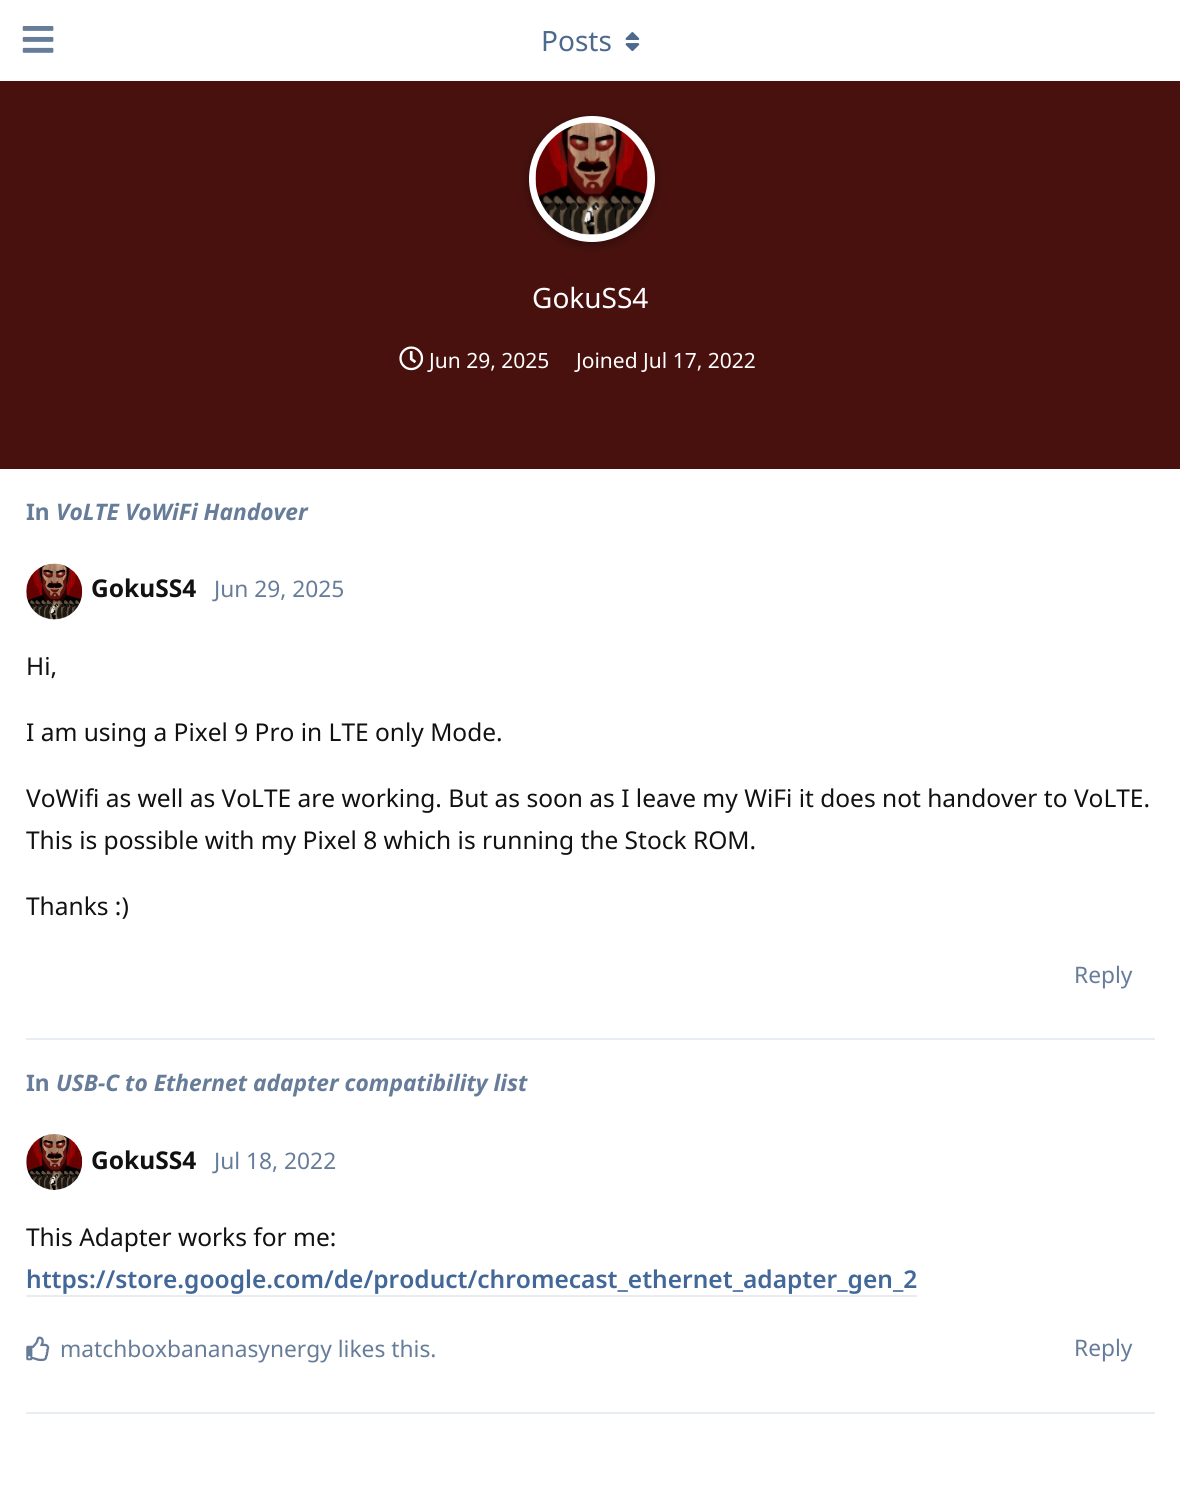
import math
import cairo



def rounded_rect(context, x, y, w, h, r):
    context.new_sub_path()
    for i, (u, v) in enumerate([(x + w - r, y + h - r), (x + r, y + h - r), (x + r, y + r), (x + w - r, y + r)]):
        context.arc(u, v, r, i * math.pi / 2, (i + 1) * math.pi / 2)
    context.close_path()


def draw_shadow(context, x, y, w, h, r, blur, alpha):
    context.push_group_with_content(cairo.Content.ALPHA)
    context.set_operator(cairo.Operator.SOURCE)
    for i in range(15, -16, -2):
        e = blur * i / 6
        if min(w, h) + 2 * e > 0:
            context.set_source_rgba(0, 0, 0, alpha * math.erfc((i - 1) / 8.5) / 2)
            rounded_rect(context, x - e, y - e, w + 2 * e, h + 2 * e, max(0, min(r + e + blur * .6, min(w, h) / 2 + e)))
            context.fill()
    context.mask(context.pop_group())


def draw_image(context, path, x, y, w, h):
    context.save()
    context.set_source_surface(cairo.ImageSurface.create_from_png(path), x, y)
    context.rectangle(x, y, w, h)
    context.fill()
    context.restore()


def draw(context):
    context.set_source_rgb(1, 1, 1)
    context.paint()
    draw_image(context, "images/1.png", 22, 26, 32, 27)
    draw_image(context, "images/2.png", 625, 32, 15, 20)
    context.set_source_rgb(232 / 255, 236 / 255, 243 / 255)
    context.rectangle(26, 1038, 1129, 2)
    context.fill()
    context.arc(54, 592, 28, 0, 2 * math.pi)
    context.fill()
    draw_image(context, "images/3.png", 26, 563, 57, 57)
    context.rectangle(26, 1412, 1129, 2)
    context.fill()
    context.arc(54, 1162, 28, 0, 2 * math.pi)
    context.fill()
    draw_image(context, "images/4.png", 26, 1134, 57, 56)
    context.rectangle(26, 1295, 891, 2)
    context.fill()
    draw_image(context, "images/5.png", 26, 1336, 24, 26)
    context.set_source_rgb(72 / 255, 17 / 255, 14 / 255)
    context.rectangle(0, 81, 1180, 388)
    context.fill()
    context.set_source_rgb(0, 0, 0)
    draw_shadow(context, 529, 119, 126, 126, 63, 5, 0.35)
    context.set_source_rgb(232 / 255, 236 / 255, 243 / 255)
    context.arc(592, 179, 59.5, 0, 2 * math.pi)
    context.fill_preserve()
    context.set_source_rgb(1, 1, 1)
    context.set_line_width(7)
    context.stroke()
    draw_image(context, "images/6.png", 535, 122, 113, 113)
    draw_image(context, "images/7.png", 399, 346, 25, 25)
    context.select_font_face("Noto Sans")
    context.set_font_size(28)
    context.set_source_rgb(77 / 255, 105 / 255, 142 / 255)
    context.move_to(541, 51)
    context.show_text("Posts")
    context.select_font_face("Noto Sans", cairo.FontSlant.NORMAL, cairo.FontWeight.BOLD)
    context.set_font_size(22.75)
    context.set_source_rgb(102 / 255, 124 / 255, 153 / 255)
    context.move_to(26, 520)
    context.show_text("In")
    context.select_font_face("Noto Sans", cairo.FontSlant.ITALIC, cairo.FontWeight.BOLD)
    context.move_to(56, 520)
    context.show_text("VoLTE VoWiFi Handover")
    context.select_font_face("Noto Sans", cairo.FontSlant.NORMAL, cairo.FontWeight.BOLD)
    context.set_font_size(24.5)
    context.set_source_rgb(17 / 255, 17 / 255, 17 / 255)
    context.move_to(91, 597)
    context.show_text("GokuSS4")
    context.select_font_face("Noto Sans")
    context.set_font_size(22.75)
    context.set_source_rgb(102 / 255, 124 / 255, 153 / 255)
    context.move_to(214, 597)
    context.show_text("Jun 29, 2025")
    context.set_font_size(24.5)
    context.set_source_rgb(17 / 255, 17 / 255, 17 / 255)
    context.move_to(26, 675)
    context.show_text("Hi,")
    context.move_to(26, 741)
    context.show_text("I am using a Pixel 9 Pro in LTE only Mode.")
    context.move_to(26, 807)
    context.show_text("VoWifi as well as VoLTE are working. But as soon as I leave my WiFi it does not handover to VoLTE.")
    context.move_to(26, 849)
    context.show_text("This is possible with my Pixel 8 which is running the Stock ROM.")
    context.move_to(26, 915)
    context.show_text("Thanks :)")
    context.set_font_size(22.75)
    context.set_source_rgb(102 / 255, 124 / 255, 153 / 255)
    context.move_to(1074, 983)
    context.show_text("Reply")
    context.select_font_face("Noto Sans", cairo.FontSlant.NORMAL, cairo.FontWeight.BOLD)
    context.move_to(26, 1091)
    context.show_text("In")
    context.select_font_face("Noto Sans", cairo.FontSlant.ITALIC, cairo.FontWeight.BOLD)
    context.move_to(56, 1091)
    context.show_text("USB-C to Ethernet adapter compatibility list")
    context.select_font_face("Noto Sans", cairo.FontSlant.NORMAL, cairo.FontWeight.BOLD)
    context.set_font_size(24.5)
    context.set_source_rgb(17 / 255, 17 / 255, 17 / 255)
    context.move_to(91, 1169)
    context.show_text("GokuSS4")
    context.select_font_face("Noto Sans")
    context.set_font_size(22.75)
    context.set_source_rgb(102 / 255, 124 / 255, 153 / 255)
    context.move_to(214, 1169)
    context.show_text("Jul 18, 2022")
    context.set_font_size(24.5)
    context.set_source_rgb(17 / 255, 17 / 255, 17 / 255)
    context.move_to(26, 1246)
    context.show_text("This Adapter works for me:")
    context.select_font_face("Noto Sans SemiBold")
    context.set_source_rgb(66 / 255, 103 / 255, 153 / 255)
    context.move_to(26, 1288)
    context.show_text("https://store.google.com/de/product/chromecast_ethernet_adapter_gen_2")
    context.select_font_face("Noto Sans")
    context.set_font_size(22.75)
    context.set_source_rgb(102 / 255, 124 / 255, 153 / 255)
    context.move_to(60, 1357)
    context.show_text("matchboxbananasynergy likes this.")
    context.move_to(1074, 1356)
    context.show_text("Reply")
    context.set_font_size(28)
    context.set_source_rgb(1, 1, 1)
    context.move_to(532, 308)
    context.show_text("GokuSS4")
    context.set_font_size(21)
    context.move_to(429, 368)
    context.show_text("Jun 29, 2025")
    context.move_to(576, 368)
    context.show_text("Joined Jul 17, 2022")


surface = cairo.ImageSurface(cairo.Format.RGB24, 1180, 1511)
context = cairo.Context(surface)
options = cairo.FontOptions()
options.set_hint_metrics(cairo.HintMetrics.OFF)
options.set_hint_style(cairo.HintStyle.NONE)
context.set_font_options(options)
context.set_miter_limit(4)
draw(context)
surface.write_to_png("out.png")
